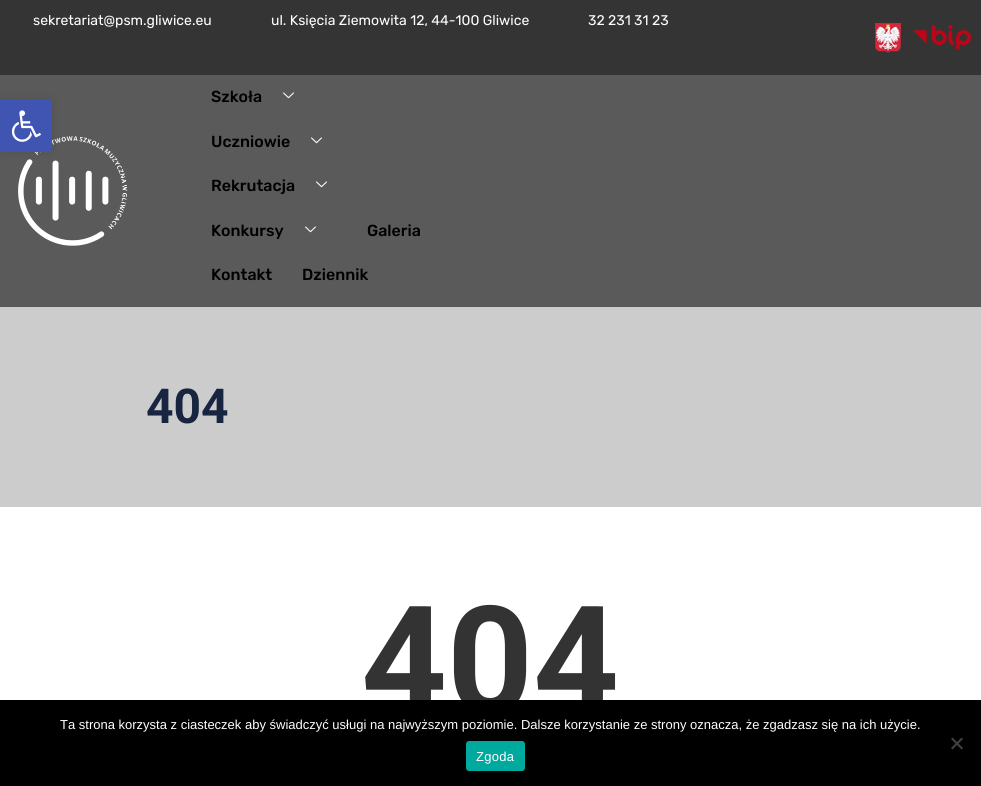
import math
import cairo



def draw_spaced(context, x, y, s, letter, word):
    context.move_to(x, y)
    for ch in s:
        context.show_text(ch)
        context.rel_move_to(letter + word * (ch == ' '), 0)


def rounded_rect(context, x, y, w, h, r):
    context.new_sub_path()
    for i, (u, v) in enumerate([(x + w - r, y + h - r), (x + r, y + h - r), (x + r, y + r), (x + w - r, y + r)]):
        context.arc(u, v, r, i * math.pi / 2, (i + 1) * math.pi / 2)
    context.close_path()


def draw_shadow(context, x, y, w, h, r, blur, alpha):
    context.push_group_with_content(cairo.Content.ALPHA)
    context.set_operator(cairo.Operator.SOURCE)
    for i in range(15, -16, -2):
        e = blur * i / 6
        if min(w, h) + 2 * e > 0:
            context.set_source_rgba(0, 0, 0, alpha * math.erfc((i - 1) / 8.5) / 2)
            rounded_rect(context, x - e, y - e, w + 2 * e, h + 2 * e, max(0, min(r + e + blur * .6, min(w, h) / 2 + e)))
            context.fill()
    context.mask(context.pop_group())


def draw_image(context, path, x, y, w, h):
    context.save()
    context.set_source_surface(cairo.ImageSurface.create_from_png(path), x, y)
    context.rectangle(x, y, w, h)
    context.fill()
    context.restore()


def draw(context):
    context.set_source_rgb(1, 1, 1)
    context.paint()
    context.set_source_rgb(52 / 255, 52 / 255, 52 / 255)
    context.rectangle(0, 0, 981, 75)
    context.fill()
    draw_image(context, "images/1.png", 875, 23, 96, 30)
    context.set_source_rgb(90 / 255, 90 / 255, 90 / 255)
    context.rectangle(0, 75, 981, 232)
    context.fill()
    draw_image(context, "images/2.png", 18, 136, 110, 110)
    draw_image(context, "images/3.png", 283, 92, 11, 7)
    draw_image(context, "images/3.png", 311, 137, 11, 7)
    draw_image(context, "images/3.png", 316, 181, 11, 7)
    draw_image(context, "images/3.png", 305, 226, 11, 7)
    context.set_source_rgb(0, 0, 0)
    draw_shadow(context, 0, 100, 52, 52, 0, 5, 0.1)
    context.set_source_rgb(64 / 255, 84 / 255, 178 / 255)
    context.rectangle(0, 100, 52, 52)
    context.fill()
    draw_image(context, "images/4.png", 11, 110, 30, 32)
    context.set_source_rgb(204 / 255, 204 / 255, 204 / 255)
    context.rectangle(0, 307, 981, 200)
    context.fill()
    context.select_font_face("Rubik")
    context.set_font_size(14)
    context.set_source_rgb(1, 1, 1)
    context.move_to(33, 25)
    context.show_text("sekretariat@psm.gliwice.eu")
    context.move_to(271, 25)
    context.show_text("ul. Księcia Ziemowita 12, 44-100 Gliwice")
    context.move_to(588, 25)
    context.show_text("32 231 31 23")
    context.select_font_face("Rubik Medium")
    context.set_font_size(16)
    context.set_source_rgb(0, 0, 0)
    context.move_to(211, 102)
    context.show_text("Szkoła")
    context.move_to(211, 147)
    context.show_text("Uczniowie")
    context.move_to(211, 191)
    context.show_text("Rekrutacja")
    context.move_to(211, 236)
    context.show_text("Konkursy")
    context.move_to(367, 236)
    context.show_text("Galeria")
    context.move_to(211, 280)
    context.show_text("Kontakt")
    context.move_to(302, 280)
    context.show_text("Dziennik")
    context.select_font_face("Roboto", cairo.FontSlant.NORMAL, cairo.FontWeight.BOLD)
    context.set_font_size(48)
    context.set_source_rgb(23 / 255, 37 / 255, 65 / 255)
    context.move_to(146, 423)
    context.show_text("404")
    context.set_font_size(150)
    context.set_source_rgb(51 / 255, 51 / 255, 51 / 255)
    context.move_to(361, 713)
    context.show_text("404")
    context.set_source_rgb(0, 0, 0)
    context.rectangle(0, 700, 981, 86)
    context.fill()
    context.select_font_face("Liberation Sans")
    context.set_font_size(13)
    context.set_source_rgb(1, 1, 1)
    context.move_to(60, 729)
    context.show_text("Ta strona korzysta z ciasteczek aby świadczyć usługi na najwyższym poziomie. Dalsze korzystanie ze strony oznacza, że zgadzasz się na ich użycie.")
    context.set_source_rgb(64 / 255, 64 / 255, 64 / 255)
    context.new_path()
    context.move_to(961.5, 737.5)
    context.line_to(963, 739)
    context.line_to(952.5, 749.5)
    context.line_to(951, 748)
    context.close_path()
    context.fill()
    context.new_path()
    context.move_to(951, 739)
    context.line_to(952.5, 737.5)
    context.line_to(963, 748)
    context.line_to(961.5, 749.5)
    context.close_path()
    context.fill()
    context.set_source_rgb(0, 169 / 255, 157 / 255)
    rounded_rect(context, 466, 741, 59, 30, 3)
    context.fill()
    context.set_source_rgb(1, 1, 1)
    draw_spaced(context, 476, 761, "Zgoda", 0.25, 0)


surface = cairo.ImageSurface(cairo.Format.RGB24, 981, 786)
context = cairo.Context(surface)
options = cairo.FontOptions()
options.set_hint_metrics(cairo.HintMetrics.OFF)
options.set_hint_style(cairo.HintStyle.NONE)
context.set_font_options(options)
context.set_miter_limit(4)
draw(context)
surface.write_to_png("out.png")
